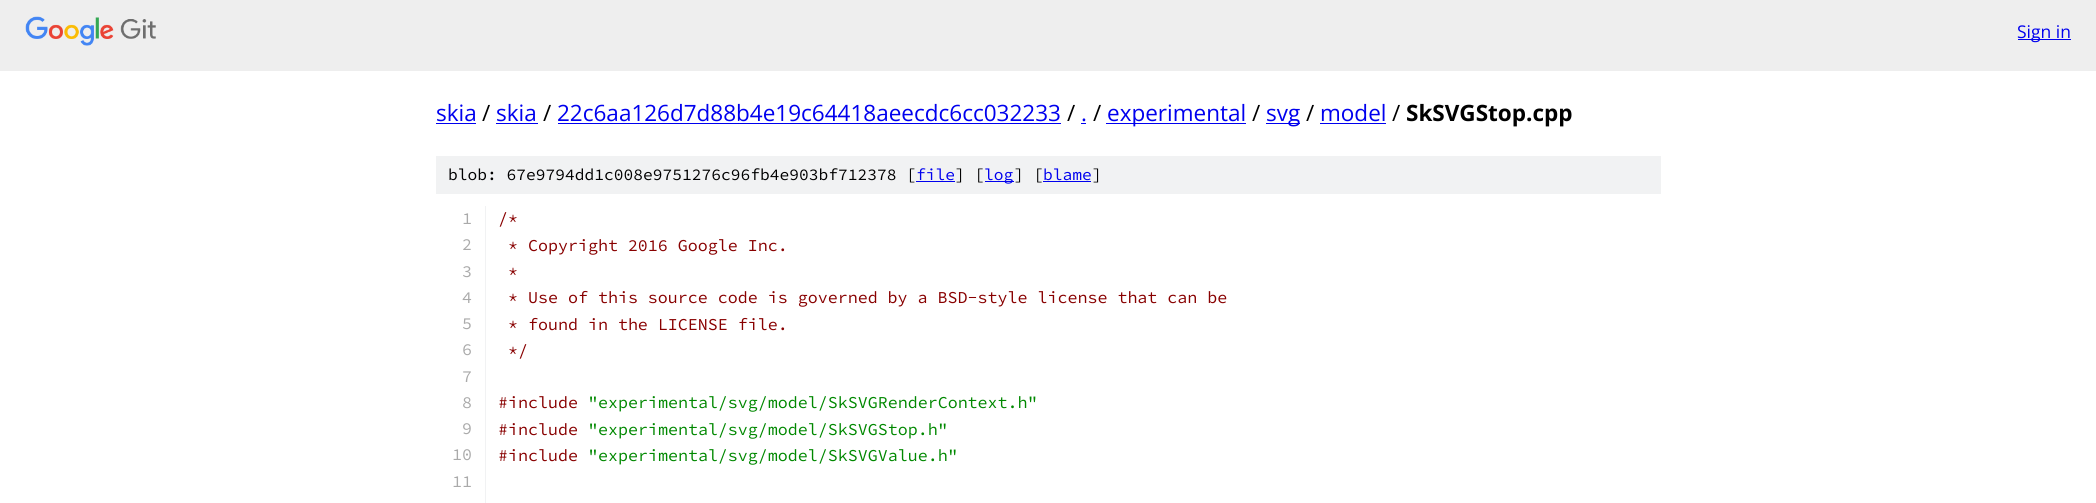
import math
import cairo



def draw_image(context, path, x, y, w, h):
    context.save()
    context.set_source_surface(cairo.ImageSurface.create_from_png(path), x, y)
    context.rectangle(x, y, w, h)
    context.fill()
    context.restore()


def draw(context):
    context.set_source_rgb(1, 1, 1)
    context.paint()
    context.set_source_rgb(238 / 255, 238 / 255, 238 / 255)
    context.rectangle(0, 0, 2096, 71)
    context.fill()
    draw_image(context, "images/1.png", 25, 16, 131, 30)
    context.set_source_rgb(0, 0, 238 / 255)
    context.rectangle(2018, 39, 53, 1)
    context.fill()
    context.rectangle(436, 123, 40, 1)
    context.fill()
    context.rectangle(496, 123, 42, 1)
    context.fill()
    context.rectangle(558, 123, 503, 1)
    context.fill()
    context.rectangle(1081, 123, 5, 1)
    context.fill()
    context.rectangle(1106, 123, 140, 1)
    context.fill()
    context.rectangle(1266, 123, 34, 1)
    context.fill()
    context.rectangle(1320, 123, 66, 1)
    context.fill()
    context.set_source_rgb(241 / 255, 242 / 255, 243 / 255)
    context.rectangle(436, 156, 1225, 38)
    context.fill()
    context.set_source_rgb(0, 0, 238 / 255)
    context.rectangle(916, 181, 39, 1)
    context.fill()
    context.rectangle(985, 181, 29, 1)
    context.fill()
    context.rectangle(1043, 181, 48, 1)
    context.fill()
    context.set_source_rgb(241 / 255, 242 / 255, 243 / 255)
    context.rectangle(485, 206, 1, 297)
    context.fill()
    context.select_font_face("Open Sans")
    context.set_font_size(17.5)
    context.set_source_rgb(0, 0, 238 / 255)
    context.move_to(2017, 38)
    context.show_text("Sign in")
    context.set_font_size(22.5)
    context.move_to(436, 121)
    context.show_text("skia")
    context.set_source_rgb(0, 0, 0)
    context.move_to(482, 121)
    context.show_text("/")
    context.set_source_rgb(0, 0, 238 / 255)
    context.move_to(496, 121)
    context.show_text("skia")
    context.set_source_rgb(0, 0, 0)
    context.move_to(543, 121)
    context.show_text("/")
    context.set_source_rgb(0, 0, 238 / 255)
    context.move_to(557, 121)
    context.show_text("22c6aa126d7d88b4e19c64418aeecdc6cc032233")
    context.set_source_rgb(0, 0, 0)
    context.move_to(1067, 121)
    context.show_text("/")
    context.set_source_rgb(0, 0, 238 / 255)
    context.move_to(1081, 121)
    context.show_text(".")
    context.set_source_rgb(0, 0, 0)
    context.move_to(1093, 121)
    context.show_text("/")
    context.set_source_rgb(0, 0, 238 / 255)
    context.move_to(1107, 121)
    context.show_text("experimental")
    context.set_source_rgb(0, 0, 0)
    context.move_to(1252, 121)
    context.show_text("/")
    context.set_source_rgb(0, 0, 238 / 255)
    context.move_to(1266, 121)
    context.show_text("svg")
    context.set_source_rgb(0, 0, 0)
    context.move_to(1306, 121)
    context.show_text("/")
    context.set_source_rgb(0, 0, 238 / 255)
    context.move_to(1320, 121)
    context.show_text("model")
    context.set_source_rgb(0, 0, 0)
    context.move_to(1392, 121)
    context.show_text("/")
    context.select_font_face("Open Sans", cairo.FontSlant.NORMAL, cairo.FontWeight.BOLD)
    context.move_to(1406, 121)
    context.show_text("SkSVGStop.cpp")
    context.select_font_face("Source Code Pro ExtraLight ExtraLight")
    context.set_font_size(16.25)
    context.move_to(448, 180)
    context.show_text("blob: 67e9794dd1c008e9751276c96fb4e903bf712378 [")
    context.set_source_rgb(0, 0, 238 / 255)
    context.move_to(916, 180)
    context.show_text("file")
    context.set_source_rgb(0, 0, 0)
    context.move_to(955, 180)
    context.show_text("] [")
    context.set_source_rgb(0, 0, 238 / 255)
    context.move_to(984, 180)
    context.show_text("log")
    context.set_source_rgb(0, 0, 0)
    context.move_to(1014, 180)
    context.show_text("] [")
    context.set_source_rgb(0, 0, 238 / 255)
    context.move_to(1043, 180)
    context.show_text("blame")
    context.set_source_rgb(0, 0, 0)
    context.move_to(1092, 180)
    context.show_text("]")
    context.set_font_size(16.65)
    context.set_source_rgb(170 / 255, 170 / 255, 170 / 255)
    context.move_to(462, 224)
    context.show_text("1")
    context.set_source_rgb(136 / 255, 0, 0)
    context.move_to(498, 224)
    context.show_text("/*")
    context.set_source_rgb(170 / 255, 170 / 255, 170 / 255)
    context.move_to(462, 250)
    context.show_text("2")
    context.set_source_rgb(136 / 255, 0, 0)
    context.move_to(508, 251)
    context.show_text("* Copyright 2016 Google Inc.")
    context.set_source_rgb(170 / 255, 170 / 255, 170 / 255)
    context.move_to(462, 277)
    context.show_text("3")
    context.set_source_rgb(136 / 255, 0, 0)
    context.move_to(508, 277)
    context.show_text("*")
    context.set_source_rgb(170 / 255, 170 / 255, 170 / 255)
    context.move_to(462, 303)
    context.show_text("4")
    context.set_source_rgb(136 / 255, 0, 0)
    context.move_to(508, 303)
    context.show_text("* Use of this source code is governed by a BSD-style license that can be")
    context.set_source_rgb(170 / 255, 170 / 255, 170 / 255)
    context.move_to(462, 329)
    context.show_text("5")
    context.set_source_rgb(136 / 255, 0, 0)
    context.move_to(508, 330)
    context.show_text("* found in the LICENSE file.")
    context.set_source_rgb(170 / 255, 170 / 255, 170 / 255)
    context.move_to(462, 355)
    context.show_text("6")
    context.set_source_rgb(136 / 255, 0, 0)
    context.move_to(508, 356)
    context.show_text("*/")
    context.set_source_rgb(170 / 255, 170 / 255, 170 / 255)
    context.move_to(462, 382)
    context.show_text("7")
    context.move_to(462, 408)
    context.show_text("8")
    context.set_source_rgb(136 / 255, 0, 0)
    context.move_to(498, 408)
    context.show_text("#include")
    context.set_source_rgb(0, 136 / 255, 0)
    context.move_to(588, 408)
    context.show_text("\"experimental/svg/model/SkSVGRenderContext.h\"")
    context.set_source_rgb(170 / 255, 170 / 255, 170 / 255)
    context.move_to(462, 434)
    context.show_text("9")
    context.set_source_rgb(136 / 255, 0, 0)
    context.move_to(498, 435)
    context.show_text("#include")
    context.set_source_rgb(0, 136 / 255, 0)
    context.move_to(588, 435)
    context.show_text("\"experimental/svg/model/SkSVGStop.h\"")
    context.set_source_rgb(170 / 255, 170 / 255, 170 / 255)
    context.move_to(452, 460)
    context.show_text("10")
    context.set_source_rgb(136 / 255, 0, 0)
    context.move_to(498, 461)
    context.show_text("#include")
    context.set_source_rgb(0, 136 / 255, 0)
    context.move_to(588, 461)
    context.show_text("\"experimental/svg/model/SkSVGValue.h\"")
    context.set_source_rgb(170 / 255, 170 / 255, 170 / 255)
    context.move_to(452, 487)
    context.show_text("11")


surface = cairo.ImageSurface(cairo.Format.RGB24, 2096, 503)
context = cairo.Context(surface)
options = cairo.FontOptions()
options.set_hint_metrics(cairo.HintMetrics.OFF)
options.set_hint_style(cairo.HintStyle.NONE)
context.set_font_options(options)
context.set_miter_limit(4)
draw(context)
surface.write_to_png("out.png")
